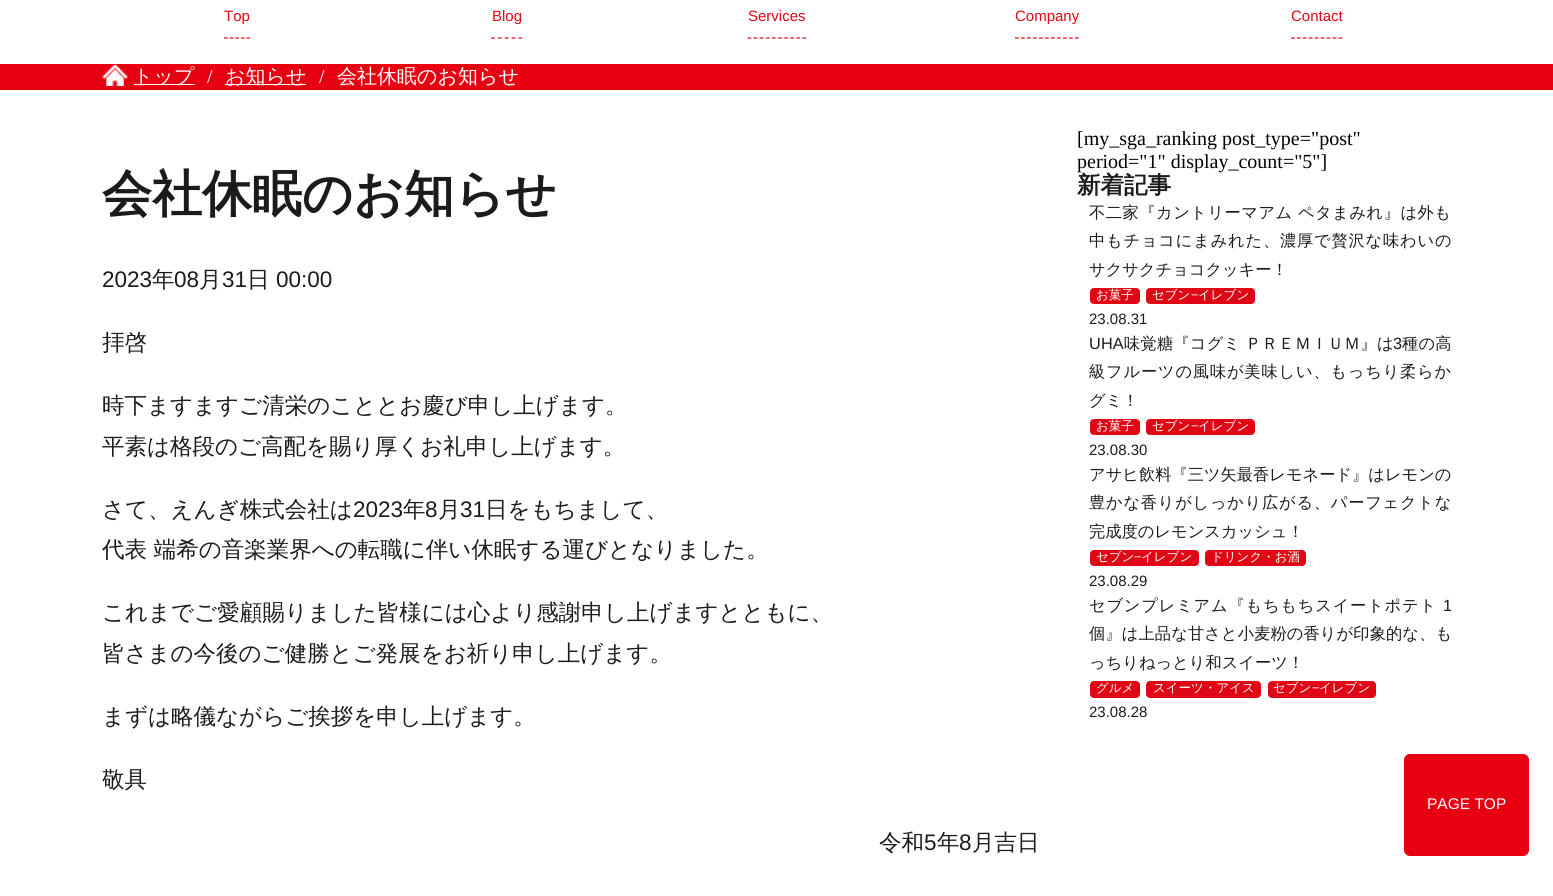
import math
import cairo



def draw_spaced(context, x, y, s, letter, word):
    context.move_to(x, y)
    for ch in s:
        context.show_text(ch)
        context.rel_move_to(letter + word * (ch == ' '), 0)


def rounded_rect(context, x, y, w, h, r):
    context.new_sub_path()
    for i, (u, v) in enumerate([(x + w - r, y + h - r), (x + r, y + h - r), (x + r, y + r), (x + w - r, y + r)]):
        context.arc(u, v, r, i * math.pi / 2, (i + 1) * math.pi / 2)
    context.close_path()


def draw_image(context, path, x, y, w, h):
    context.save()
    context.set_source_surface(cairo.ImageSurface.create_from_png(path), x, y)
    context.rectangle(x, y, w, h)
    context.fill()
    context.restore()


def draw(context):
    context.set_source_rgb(1, 1, 1)
    context.paint()
    context.new_path()
    context.move_to(224, 38)
    context.line_to(250, 38)
    context.set_source_rgb(223 / 255, 6 / 255, 21 / 255)
    context.set_line_width(1.2)
    context.set_dash([3.75, 1.88])
    context.stroke()
    context.new_path()
    context.move_to(491, 38)
    context.line_to(522.5, 38)
    context.set_dash([3.75, 3.12])
    context.stroke()
    context.new_path()
    context.move_to(747.5, 38)
    context.line_to(806, 38)
    context.set_dash([3.75, 2.36])
    context.stroke()
    context.new_path()
    context.move_to(1015, 38)
    context.line_to(1079, 38)
    context.set_dash([3.75, 2.25])
    context.stroke()
    context.new_path()
    context.move_to(1291, 38)
    context.line_to(1342.5, 38)
    context.set_dash([3.75, 2.19])
    context.stroke()
    context.set_source_rgb(230 / 255, 0, 18 / 255)
    context.rectangle(0, 64, 1553, 26)
    context.fill()
    draw_image(context, "images/1.png", 102, 64, 26, 22)
    context.set_source_rgb(1, 1, 1)
    context.rectangle(134, 84, 61, 1)
    context.fill()
    context.rectangle(225, 84, 81, 1)
    context.fill()
    context.set_source_rgb(223 / 255, 6 / 255, 21 / 255)
    rounded_rect(context, 1090, 288, 50, 16, 4)
    context.fill()
    rounded_rect(context, 1146, 288, 109, 16, 4)
    context.fill()
    rounded_rect(context, 1090, 419, 50, 16, 4)
    context.fill()
    rounded_rect(context, 1146, 419, 109, 16, 4)
    context.fill()
    rounded_rect(context, 1090, 550, 109, 16, 4)
    context.fill()
    rounded_rect(context, 1205, 550, 101, 16, 4)
    context.fill()
    rounded_rect(context, 1090, 681, 50, 17, 4)
    context.fill()
    rounded_rect(context, 1146, 681, 115, 17, 4)
    context.fill()
    rounded_rect(context, 1268, 681, 108, 17, 4)
    context.fill()
    context.set_source_rgb(230 / 255, 0, 18 / 255)
    rounded_rect(context, 1404, 754, 125, 102, 6)
    context.fill()
    context.select_font_face("Liberation Sans")
    context.set_font_size(15)
    context.set_source_rgb(223 / 255, 6 / 255, 21 / 255)
    context.move_to(224, 21)
    context.show_text("Top")
    context.move_to(492, 21)
    context.show_text("Blog")
    context.move_to(748, 21)
    context.show_text("Services")
    context.move_to(1015, 21)
    context.show_text("Company")
    context.move_to(1291, 21)
    context.show_text("Contact")
    context.select_font_face("WenQuanYi Zen Hei Medium")
    context.set_font_size(20)
    context.set_source_rgb(1, 1, 1)
    context.move_to(133, 83)
    context.show_text("トップ")
    context.select_font_face("Liberation Serif")
    context.move_to(207, 83)
    context.show_text("/")
    context.select_font_face("WenQuanYi Zen Hei Medium")
    context.move_to(225, 83)
    context.show_text("お知らせ")
    context.select_font_face("Liberation Serif")
    context.move_to(319, 83)
    context.show_text("/")
    context.select_font_face("WenQuanYi Zen Hei Medium")
    context.move_to(337, 83)
    context.show_text("会社休眠のお知らせ")
    context.select_font_face("WenQuanYi Zen Hei", cairo.FontSlant.NORMAL, cairo.FontWeight.BOLD)
    context.set_font_size(50)
    context.set_source_rgb(27 / 255, 27 / 255, 27 / 255)
    context.move_to(102, 211)
    context.show_text("会社休眠のお知らせ")
    context.select_font_face("Liberation Sans")
    context.set_font_size(22.5)
    context.move_to(102, 287)
    context.show_text("2023")
    context.select_font_face("WenQuanYi Zen Hei Medium")
    context.move_to(152, 287)
    context.show_text("年")
    context.select_font_face("Liberation Sans")
    context.move_to(174, 287)
    context.show_text("08")
    context.select_font_face("WenQuanYi Zen Hei Medium")
    context.move_to(199, 287)
    context.show_text("月")
    context.select_font_face("Liberation Sans")
    context.move_to(222, 287)
    context.show_text("31")
    context.select_font_face("WenQuanYi Zen Hei Medium")
    context.move_to(247, 287)
    context.show_text("日")
    context.select_font_face("Liberation Sans")
    context.move_to(276, 287)
    context.show_text("00:00")
    context.select_font_face("WenQuanYi Zen Hei Medium")
    context.move_to(102, 350)
    context.show_text("拝啓")
    context.move_to(102, 413)
    context.show_text("時下ますますご清栄のこととお慶び申し上げます。")
    context.move_to(102, 454)
    context.show_text("平素は格段のご高配を賜り厚くお礼申し上げます。")
    context.move_to(102, 517)
    context.show_text("さて、えんぎ株式会社は")
    context.select_font_face("Liberation Sans")
    context.move_to(353, 517)
    context.show_text("2023")
    context.select_font_face("WenQuanYi Zen Hei Medium")
    context.move_to(403, 517)
    context.show_text("年")
    context.select_font_face("Liberation Sans")
    context.move_to(425, 517)
    context.show_text("8")
    context.select_font_face("WenQuanYi Zen Hei Medium")
    context.move_to(438, 517)
    context.show_text("月")
    context.select_font_face("Liberation Sans")
    context.move_to(460, 517)
    context.show_text("31")
    context.select_font_face("WenQuanYi Zen Hei Medium")
    context.move_to(485, 517)
    context.show_text("日をもちまして、")
    context.move_to(102, 557)
    context.show_text("代表 端希の音楽業界への転職に伴い休眠する運びとなりました。")
    context.move_to(102, 620)
    context.show_text("これまでご愛顧賜りました皆様には心より感謝申し上げますとともに、")
    context.move_to(102, 661)
    context.show_text("皆さまの今後のご健勝とご発展をお祈り申し上げます。")
    context.move_to(102, 724)
    context.show_text("まずは略儀ながらご挨拶を申し上げます。")
    context.move_to(102, 787)
    context.show_text("敬具")
    context.move_to(879, 850)
    context.show_text("令和")
    context.select_font_face("Liberation Sans")
    context.move_to(924, 850)
    context.show_text("5")
    context.select_font_face("WenQuanYi Zen Hei Medium")
    context.move_to(937, 850)
    context.show_text("年")
    context.select_font_face("Liberation Sans")
    context.move_to(959, 850)
    context.show_text("8")
    context.select_font_face("WenQuanYi Zen Hei Medium")
    context.move_to(972, 850)
    context.show_text("月吉日")
    context.select_font_face("Liberation Serif")
    context.set_font_size(20)
    context.set_source_rgb(0, 0, 0)
    context.move_to(1077, 145)
    context.show_text("[my_sga_ranking post_type=\"post\"")
    context.move_to(1077, 168)
    context.show_text("period=\"1\" display_count=\"5\"]")
    context.select_font_face("WenQuanYi Zen Hei", cairo.FontSlant.NORMAL, cairo.FontWeight.BOLD)
    context.set_font_size(23.5)
    context.set_source_rgb(27 / 255, 27 / 255, 27 / 255)
    context.move_to(1077, 193)
    context.show_text("新着記事")
    context.select_font_face("WenQuanYi Zen Hei Medium")
    context.set_font_size(16.25)
    draw_spaced(context, 1089, 218, "不二家『カントリーマアム ペタまみれ』は外も", 0.5, 0)
    draw_spaced(context, 1089, 246, "中もチョコにまみれた、濃厚で贅沢な味わいの", 0.8, 0)
    context.move_to(1089, 275)
    context.show_text("サクサクチョコクッキー！")
    context.set_font_size(12.5)
    context.set_source_rgb(1, 1, 1)
    context.move_to(1096, 299)
    context.show_text("お菓子")
    context.move_to(1152, 299)
    context.show_text("セブン")
    context.select_font_face("Liberation Sans")
    context.move_to(1191, 299)
    context.show_text("−")
    context.select_font_face("WenQuanYi Zen Hei Medium")
    context.move_to(1198, 299)
    context.show_text("イレブン")
    context.select_font_face("Liberation Sans")
    context.set_font_size(15)
    context.set_source_rgb(27 / 255, 27 / 255, 27 / 255)
    context.move_to(1089, 324)
    context.show_text("23.08.31")
    context.set_font_size(16.25)
    draw_spaced(context, 1089, 349, "UHA", 0.2, 0)
    context.select_font_face("WenQuanYi Zen Hei Medium")
    draw_spaced(context, 1124, 349, "味覚糖『コグミ ＰＲＥＭＩＵＭ』は", 0.2, 0)
    context.select_font_face("Liberation Sans")
    draw_spaced(context, 1393, 349, "3", 0.2, 0)
    context.select_font_face("WenQuanYi Zen Hei Medium")
    draw_spaced(context, 1402, 349, "種の高", 0.2, 0)
    draw_spaced(context, 1089, 377, "級フルーツの風味が美味しい、もっちり柔らか", 0.8, 0)
    context.move_to(1089, 406)
    context.show_text("グミ！")
    context.set_font_size(12.5)
    context.set_source_rgb(1, 1, 1)
    context.move_to(1096, 430)
    context.show_text("お菓子")
    context.move_to(1152, 430)
    context.show_text("セブン")
    context.select_font_face("Liberation Sans")
    context.move_to(1191, 430)
    context.show_text("−")
    context.select_font_face("WenQuanYi Zen Hei Medium")
    context.move_to(1198, 430)
    context.show_text("イレブン")
    context.select_font_face("Liberation Sans")
    context.set_font_size(15)
    context.set_source_rgb(27 / 255, 27 / 255, 27 / 255)
    context.move_to(1089, 455)
    context.show_text("23.08.30")
    context.select_font_face("WenQuanYi Zen Hei Medium")
    context.set_font_size(16.25)
    context.move_to(1089, 480)
    context.show_text("アサヒ飲料『三ツ矢最香レモネード』はレモンの")
    draw_spaced(context, 1089, 508, "豊かな香りがしっかり広がる、パーフェクトな", 0.75, 0)
    context.move_to(1089, 537)
    context.show_text("完成度のレモンスカッシュ！")
    context.set_font_size(12.5)
    context.set_source_rgb(1, 1, 1)
    context.move_to(1096, 561)
    context.show_text("セブン")
    context.select_font_face("Liberation Sans")
    context.move_to(1134, 561)
    context.show_text("−")
    context.select_font_face("WenQuanYi Zen Hei Medium")
    context.move_to(1141, 561)
    context.show_text("イレブン")
    context.move_to(1211, 561)
    context.show_text("ドリンク・お酒")
    context.select_font_face("Liberation Sans")
    context.set_font_size(15)
    context.set_source_rgb(27 / 255, 27 / 255, 27 / 255)
    context.move_to(1089, 586)
    context.show_text("23.08.29")
    context.select_font_face("WenQuanYi Zen Hei Medium")
    context.set_font_size(16.25)
    draw_spaced(context, 1089, 611, "セブンプレミアム『もちもちスイートポテト", 0.8, 0)
    context.select_font_face("Liberation Sans")
    draw_spaced(context, 1443, 611, "1", 0.8, 0)
    context.select_font_face("WenQuanYi Zen Hei Medium")
    draw_spaced(context, 1089, 639, "個』は上品な甘さと小麦粉の香りが印象的な、も", 0.1, 0)
    context.move_to(1089, 668)
    context.show_text("っちりねっとり和スイーツ！")
    context.set_font_size(12.5)
    context.set_source_rgb(1, 1, 1)
    context.move_to(1096, 692)
    context.show_text("グルメ")
    context.move_to(1153, 692)
    context.show_text("スイーツ・アイス")
    context.move_to(1273, 692)
    context.show_text("セブン")
    context.select_font_face("Liberation Sans")
    context.move_to(1312, 692)
    context.show_text("−")
    context.select_font_face("WenQuanYi Zen Hei Medium")
    context.move_to(1319, 692)
    context.show_text("イレブン")
    context.select_font_face("Liberation Sans")
    context.set_font_size(15)
    context.set_source_rgb(27 / 255, 27 / 255, 27 / 255)
    context.move_to(1089, 717)
    context.show_text("23.08.28")
    context.set_font_size(15.5)
    context.set_source_rgb(1, 1, 1)
    context.move_to(1427, 809)
    context.show_text("PAGE TOP")


surface = cairo.ImageSurface(cairo.Format.RGB24, 1553, 896)
context = cairo.Context(surface)
options = cairo.FontOptions()
options.set_hint_metrics(cairo.HintMetrics.OFF)
options.set_hint_style(cairo.HintStyle.NONE)
context.set_font_options(options)
context.set_miter_limit(4)
draw(context)
surface.write_to_png("out.png")
